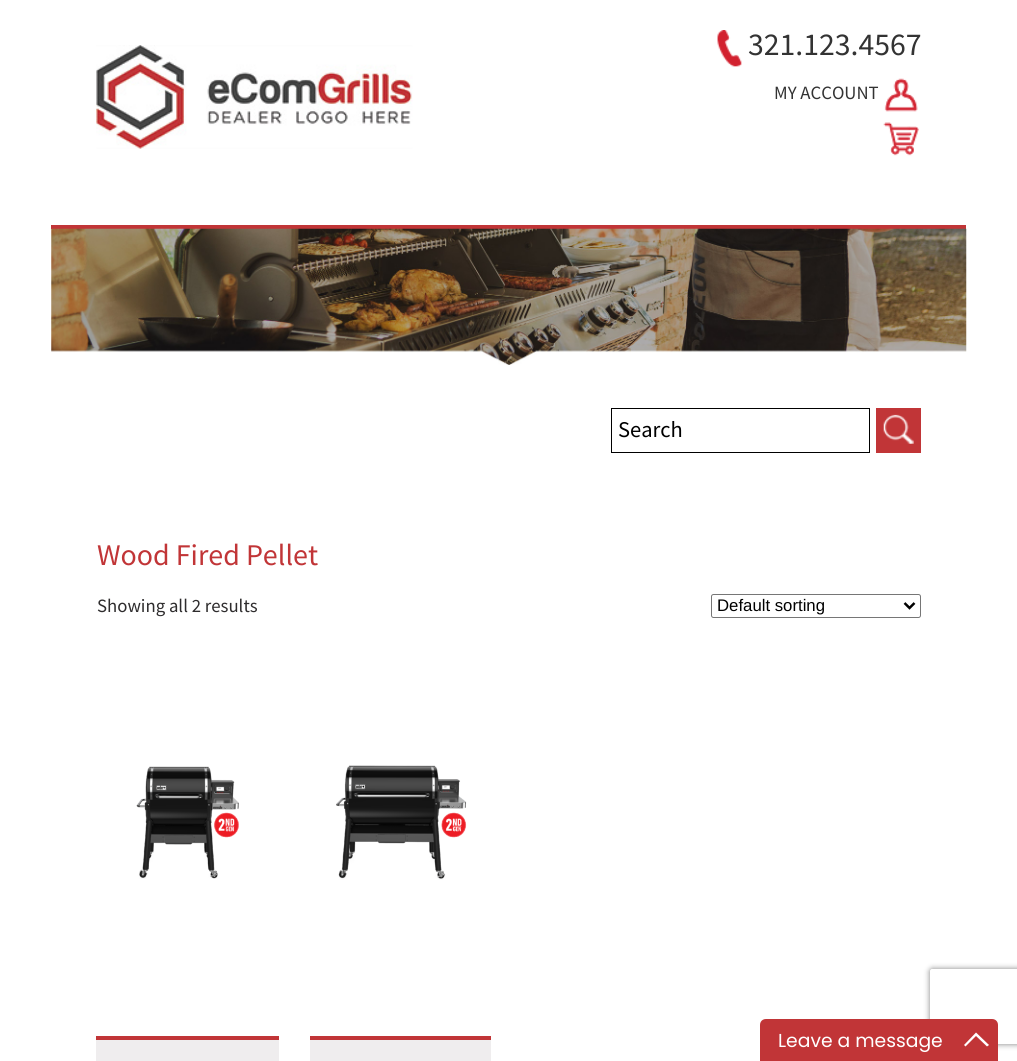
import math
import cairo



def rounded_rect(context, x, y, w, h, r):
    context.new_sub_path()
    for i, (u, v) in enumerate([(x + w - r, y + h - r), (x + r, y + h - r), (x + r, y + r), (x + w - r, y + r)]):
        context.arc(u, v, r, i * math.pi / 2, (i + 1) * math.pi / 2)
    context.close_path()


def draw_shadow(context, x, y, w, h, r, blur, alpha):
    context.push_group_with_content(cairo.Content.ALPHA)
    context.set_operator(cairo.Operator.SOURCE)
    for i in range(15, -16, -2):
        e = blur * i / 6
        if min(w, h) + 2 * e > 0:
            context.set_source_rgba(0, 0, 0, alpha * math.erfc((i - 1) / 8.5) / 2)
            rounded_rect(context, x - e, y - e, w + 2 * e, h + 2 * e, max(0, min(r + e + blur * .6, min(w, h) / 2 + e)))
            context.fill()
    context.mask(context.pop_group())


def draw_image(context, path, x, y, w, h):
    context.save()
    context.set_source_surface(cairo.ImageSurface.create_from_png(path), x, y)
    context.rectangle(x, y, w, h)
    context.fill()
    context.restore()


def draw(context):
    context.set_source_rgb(1, 1, 1)
    context.paint()
    draw_image(context, "images/1.png", 96, 45, 317, 104)
    draw_image(context, "images/2.png", 717, 30, 25, 37)
    draw_image(context, "images/3.png", 884, 78, 34, 34)
    draw_image(context, "images/4.png", 883, 122, 36, 34)
    context.set_source_rgb(193 / 255, 53 / 255, 55 / 255)
    context.rectangle(51, 225, 915, 4)
    context.fill()
    draw_image(context, "images/5.png", 51, 228, 916, 137)
    context.rectangle(611.5, 408.5, 258, 44)
    context.set_source_rgb(0, 0, 0)
    context.set_line_width(1)
    context.stroke()
    context.set_source_rgb(193 / 255, 53 / 255, 55 / 255)
    context.rectangle(876, 408, 45, 45)
    context.fill()
    draw_image(context, "images/6.png", 883, 414, 31, 30)
    rounded_rect(context, 711.5, 594.5, 209, 23, 2)
    context.set_source_rgb(118 / 255, 118 / 255, 118 / 255)
    context.stroke()
    context.new_path()
    context.move_to(904.5, 603)
    context.line_to(909.5, 608)
    context.line_to(914.5, 603)
    context.set_source_rgb(0, 0, 0)
    context.set_line_width(2.5)
    context.stroke()
    draw_image(context, "images/7.png", 136, 766, 103, 113)
    context.set_source_rgb(239 / 255, 237 / 255, 238 / 255)
    context.rectangle(96, 1040, 183, 21)
    context.fill()
    context.set_source_rgb(193 / 255, 53 / 255, 55 / 255)
    context.rectangle(96, 1036, 183, 4)
    context.fill()
    draw_image(context, "images/8.png", 336, 765, 131, 115)
    context.set_source_rgb(239 / 255, 237 / 255, 238 / 255)
    context.rectangle(310, 1040, 181, 21)
    context.fill()
    context.set_source_rgb(193 / 255, 53 / 255, 55 / 255)
    context.rectangle(310, 1036, 181, 4)
    context.fill()
    context.save()
    context.set_fill_rule(cairo.FillRule.EVEN_ODD)
    context.new_path()
    context.move_to(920, 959)
    context.line_to(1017, 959)
    context.line_to(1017, 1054)
    context.line_to(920, 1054)
    context.close_path()
    context.move_to(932.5, 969)
    context.line_to(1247.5, 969)
    context.curve_to(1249, 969, 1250, 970, 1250, 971.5)
    context.line_to(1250, 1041.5)
    context.curve_to(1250, 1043, 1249, 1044, 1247.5, 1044)
    context.line_to(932.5, 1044)
    context.curve_to(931, 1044, 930, 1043, 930, 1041.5)
    context.line_to(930, 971.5)
    context.curve_to(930, 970, 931, 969, 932.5, 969)
    context.close_path()
    context.clip()
    context.set_source_rgb(128 / 255, 128 / 255, 128 / 255)
    draw_shadow(context, 930, 969, 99, 75, 2.5, 3, 1)
    context.restore()
    context.new_path()
    context.move_to(766, 1019)
    context.line_to(992, 1019)
    context.curve_to(995.5, 1019, 998, 1021.5, 998, 1025)
    context.line_to(998, 1061)
    context.line_to(760, 1061)
    context.line_to(760, 1025)
    context.curve_to(760, 1021.5, 762.5, 1019, 766, 1019)
    context.close_path()
    context.fill()
    context.set_source_rgb(1, 1, 1)
    context.new_path()
    context.move_to(976, 1032.5)
    context.line_to(989, 1045)
    context.line_to(987, 1046.5)
    context.line_to(976, 1036)
    context.line_to(965.5, 1046.5)
    context.line_to(964, 1045)
    context.close_path()
    context.fill()
    context.select_font_face("Source Sans Pro")
    context.set_font_size(31.75)
    context.set_source_rgb(51 / 255, 51 / 255, 51 / 255)
    context.move_to(748, 55)
    context.show_text("321.123.4567")
    context.set_font_size(18.75)
    context.move_to(774, 99)
    context.show_text("MY ACCOUNT")
    context.set_font_size(22.5)
    context.set_source_rgb(0, 0, 0)
    context.move_to(618, 437)
    context.show_text("Search")
    context.set_font_size(30)
    context.set_source_rgb(193 / 255, 53 / 255, 55 / 255)
    context.move_to(97, 565)
    context.show_text("Wood Fired Pellet")
    context.set_font_size(18.75)
    context.set_source_rgb(46 / 255, 44 / 255, 45 / 255)
    context.move_to(97, 612)
    context.show_text("Showing all 2 results")
    context.select_font_face("Liberation Sans")
    context.set_font_size(16.75)
    context.set_source_rgb(0, 0, 0)
    context.move_to(717, 611)
    context.show_text("Default sorting")
    context.select_font_face("Poppins")
    context.set_font_size(18.75)
    context.set_source_rgb(1, 1, 1)
    context.move_to(778, 1047)
    context.show_text("Leave a message")


surface = cairo.ImageSurface(cairo.Format.RGB24, 1017, 1061)
context = cairo.Context(surface)
options = cairo.FontOptions()
options.set_hint_metrics(cairo.HintMetrics.OFF)
options.set_hint_style(cairo.HintStyle.NONE)
context.set_font_options(options)
context.set_miter_limit(4)
draw(context)
surface.write_to_png("out.png")
